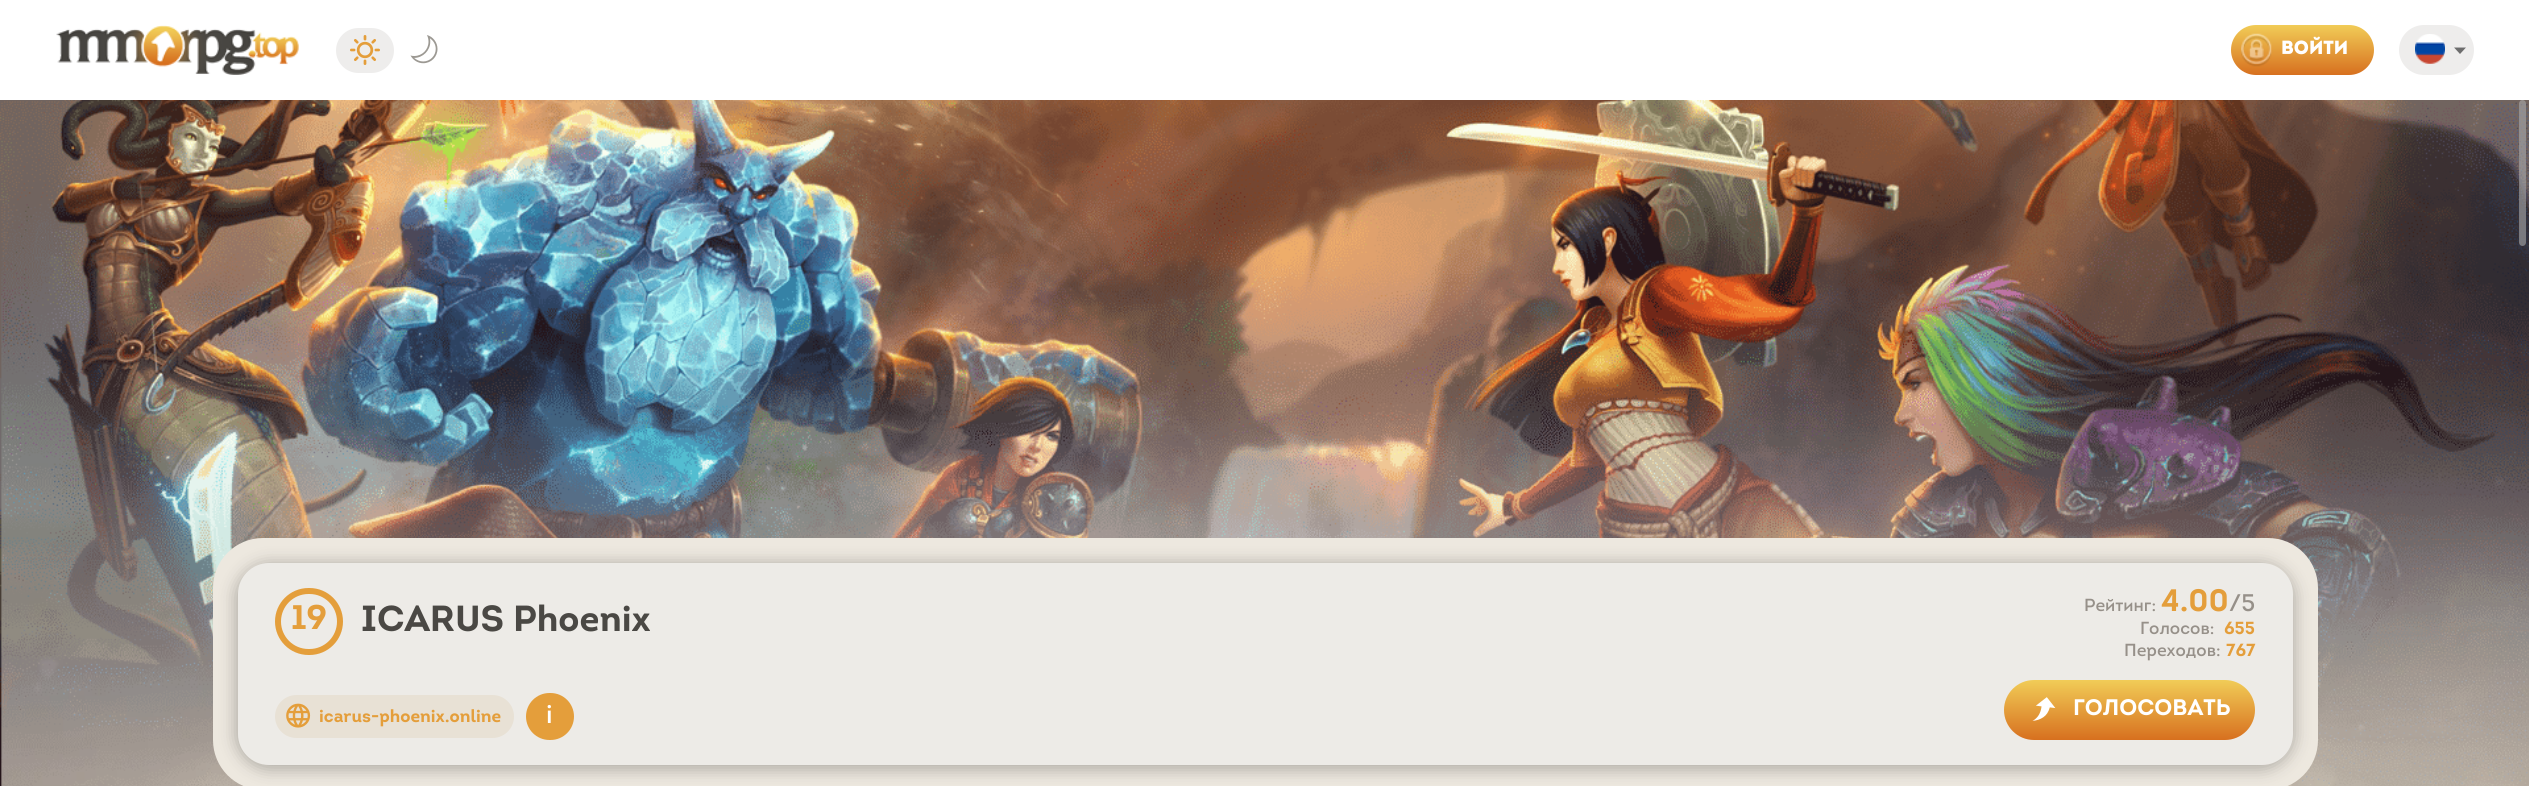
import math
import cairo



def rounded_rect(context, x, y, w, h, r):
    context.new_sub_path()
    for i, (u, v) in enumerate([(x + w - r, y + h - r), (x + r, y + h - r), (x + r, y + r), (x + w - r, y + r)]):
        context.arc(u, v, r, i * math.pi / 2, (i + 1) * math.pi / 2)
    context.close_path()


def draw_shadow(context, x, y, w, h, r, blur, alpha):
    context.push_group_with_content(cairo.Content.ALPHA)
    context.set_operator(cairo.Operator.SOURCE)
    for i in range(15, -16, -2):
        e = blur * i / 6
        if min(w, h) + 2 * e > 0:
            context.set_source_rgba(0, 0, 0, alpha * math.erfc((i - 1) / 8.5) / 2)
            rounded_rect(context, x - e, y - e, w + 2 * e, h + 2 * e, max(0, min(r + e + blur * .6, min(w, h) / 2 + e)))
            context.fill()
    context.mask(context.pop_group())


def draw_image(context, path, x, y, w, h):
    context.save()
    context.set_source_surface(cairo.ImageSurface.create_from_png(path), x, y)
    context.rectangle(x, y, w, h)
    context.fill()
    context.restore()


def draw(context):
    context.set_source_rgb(1, 1, 1)
    context.paint()
    draw_image(context, "images/1.png", 0, 100, 2529, 686)
    draw_image(context, "images/2.png", 56, 25, 243, 50)
    context.set_source_rgb(238 / 255, 237 / 255, 236 / 255)
    rounded_rect(context, 336, 28, 58, 45, 22.5)
    context.fill()
    draw_image(context, "images/3.png", 350, 35, 30, 30)
    draw_image(context, "images/4.png", 410, 35, 28, 29)
    gradient = cairo.LinearGradient(2303, 25, 2303, 75)
    gradient.add_color_stop_rgba(0, 241 / 255, 204 / 255, 87 / 255, 1)
    gradient.add_color_stop_rgba(1, 215 / 255, 112 / 255, 31 / 255, 1)
    context.set_source(gradient)
    rounded_rect(context, 2231, 25, 143, 50, 25)
    context.fill()
    draw_image(context, "images/5.png", 2241, 33, 31, 34)
    context.set_source_rgb(238 / 255, 237 / 255, 236 / 255)
    rounded_rect(context, 2399, 25, 75, 50, 25)
    context.fill()
    draw_image(context, "images/6.png", 2415, 34, 30, 30)
    context.set_source_rgb(109 / 255, 109 / 255, 109 / 255)
    context.new_path()
    context.move_to(2454, 47.5)
    context.line_to(2466, 47.5)
    context.line_to(2460, 54)
    context.close_path()
    context.fill()
    draw_image(context, "images/7.png", 0, 100, 2529, 686)
    context.set_source_rgba(170 / 255, 170 / 255, 170 / 255, 0.6)
    rounded_rect(context, 2519, 100, 7, 146, 3.5)
    context.fill()
    context.set_source_rgb(237 / 255, 232 / 255, 223 / 255)
    rounded_rect(context, 213, 538, 2105, 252, 50)
    context.fill()
    context.set_source_rgb(0, 0, 0)
    draw_shadow(context, 235, 563, 2060, 207, 34, 8, 0.25)
    context.set_source_rgb(237 / 255, 235 / 255, 231 / 255)
    rounded_rect(context, 238, 563, 2055, 202, 31)
    context.fill()
    rounded_rect(context, 278, 591, 62, 61, 30.5)
    context.set_source_rgb(228 / 255, 158 / 255, 59 / 255)
    context.set_line_width(6)
    context.stroke()
    context.set_source_rgb(232 / 255, 225 / 255, 213 / 255)
    rounded_rect(context, 275, 695, 239, 43, 21.5)
    context.fill()
    draw_image(context, "images/8.png", 286, 703, 25, 25)
    context.set_source_rgb(228 / 255, 158 / 255, 59 / 255)
    rounded_rect(context, 526, 693, 48, 47, 23.5)
    context.fill()
    gradient = cairo.LinearGradient(2129, 680, 2129, 740)
    gradient.add_color_stop_rgba(0, 241 / 255, 204 / 255, 87 / 255, 1)
    gradient.add_color_stop_rgba(1, 215 / 255, 112 / 255, 31 / 255, 1)
    context.set_source(gradient)
    rounded_rect(context, 2004, 680, 251, 60, 30)
    context.fill()
    draw_image(context, "images/9.png", 2032, 697, 24, 24)
    context.select_font_face("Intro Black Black")
    context.set_font_size(19)
    context.set_source_rgb(1, 1, 1)
    context.move_to(2281, 54)
    context.show_text("ВОЙТИ")
    context.select_font_face("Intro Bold", cairo.FontSlant.NORMAL, cairo.FontWeight.BOLD)
    context.set_font_size(34)
    context.set_source_rgb(228 / 255, 158 / 255, 59 / 255)
    context.move_to(291, 629)
    context.show_text("19")
    context.set_font_size(36.25)
    context.set_source_rgb(74 / 255, 72 / 255, 68 / 255)
    context.move_to(361, 631)
    context.show_text("ICARUS Phoenix")
    context.set_font_size(17.5)
    context.set_source_rgb(228 / 255, 158 / 255, 59 / 255)
    context.move_to(319, 722)
    context.show_text("icarus-phoenix.online")
    context.select_font_face("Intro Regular")
    context.set_font_size(26)
    context.set_source_rgb(1, 1, 1)
    context.move_to(546, 723)
    context.show_text("i")
    context.set_font_size(17.5)
    context.set_source_rgb(150 / 255, 144 / 255, 137 / 255)
    context.move_to(2084, 611)
    context.show_text("Рейтинг:")
    context.select_font_face("Intro Bold", cairo.FontSlant.NORMAL, cairo.FontWeight.BOLD)
    context.set_font_size(31)
    context.set_source_rgb(228 / 255, 158 / 255, 59 / 255)
    context.move_to(2161, 611)
    context.show_text("4.00")
    context.select_font_face("Intro Regular")
    context.set_font_size(24)
    context.set_source_rgb(150 / 255, 144 / 255, 137 / 255)
    context.move_to(2229, 611)
    context.show_text("/5")
    context.set_font_size(17.5)
    context.move_to(2140, 634)
    context.show_text("Голосов:")
    context.select_font_face("Intro Bold", cairo.FontSlant.NORMAL, cairo.FontWeight.BOLD)
    context.set_source_rgb(228 / 255, 158 / 255, 59 / 255)
    context.move_to(2224, 634)
    context.show_text("655")
    context.select_font_face("Intro Regular")
    context.set_source_rgb(150 / 255, 144 / 255, 137 / 255)
    context.move_to(2124, 656)
    context.show_text("Переходов:")
    context.select_font_face("Intro Bold", cairo.FontSlant.NORMAL, cairo.FontWeight.BOLD)
    context.set_source_rgb(228 / 255, 158 / 255, 59 / 255)
    context.move_to(2226, 656)
    context.show_text("767")
    context.set_font_size(22.5)
    context.set_source_rgb(1, 1, 1)
    context.move_to(2073, 715)
    context.show_text("ГОЛОСОВАТЬ")


surface = cairo.ImageSurface(cairo.Format.RGB24, 2529, 786)
context = cairo.Context(surface)
options = cairo.FontOptions()
options.set_hint_metrics(cairo.HintMetrics.OFF)
options.set_hint_style(cairo.HintStyle.NONE)
context.set_font_options(options)
context.set_miter_limit(4)
draw(context)
surface.write_to_png("out.png")
